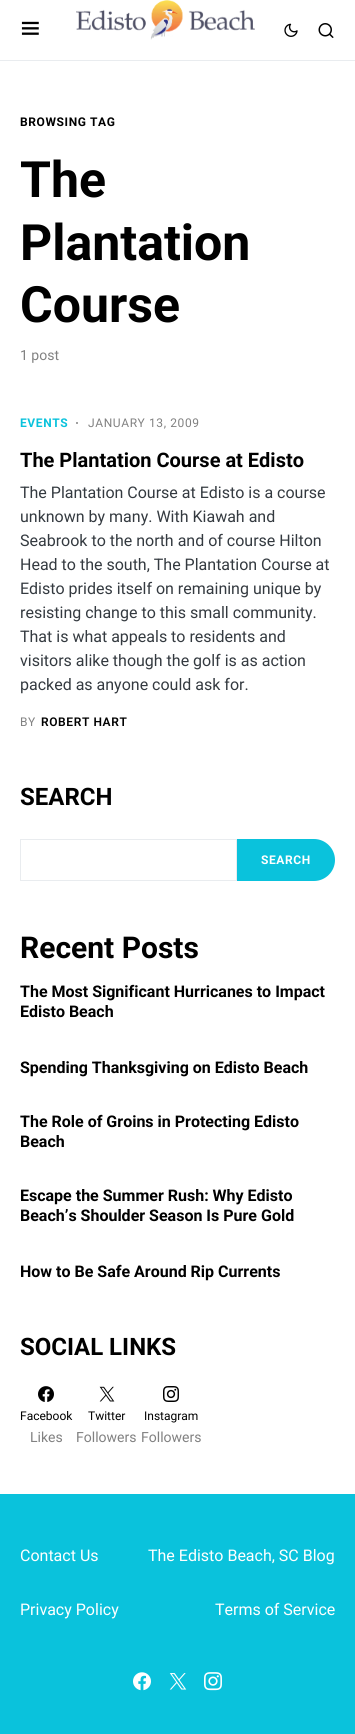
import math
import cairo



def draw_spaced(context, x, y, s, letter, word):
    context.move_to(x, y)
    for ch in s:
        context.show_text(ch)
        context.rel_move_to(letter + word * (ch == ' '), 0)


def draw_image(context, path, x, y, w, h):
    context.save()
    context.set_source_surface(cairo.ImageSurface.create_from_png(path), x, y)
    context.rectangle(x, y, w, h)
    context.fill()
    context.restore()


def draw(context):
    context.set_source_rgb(1, 1, 1)
    context.paint()
    context.set_source_rgb(233 / 255, 236 / 255, 239 / 255)
    context.rectangle(0, 60, 355, 1)
    context.fill()
    draw_image(context, "images/1.png", 21, 21, 18, 14)
    draw_image(context, "images/2.png", 76, 0, 179, 40)
    draw_image(context, "images/3.png", 284, 23, 14, 14)
    draw_image(context, "images/4.png", 318, 23, 16, 15)
    context.set_source_rgb(129 / 255, 129 / 255, 129 / 255)
    context.arc(77, 423, 1, 0, 2 * math.pi)
    context.fill()
    context.rectangle(20.5, 839.5, 216, 41)
    context.set_source_rgb(233 / 255, 236 / 255, 239 / 255)
    context.set_line_width(1)
    context.stroke()
    context.set_source_rgb(10 / 255, 194 / 255, 220 / 255)
    context.new_path()
    context.move_to(237, 839)
    context.line_to(314, 839)
    context.curve_to(325.5, 839, 335, 848.5, 335, 860)
    context.curve_to(335, 871.5, 325.5, 881, 314, 881)
    context.line_to(237, 881)
    context.close_path()
    context.fill()
    draw_image(context, "images/5.png", 38, 1386, 16, 16)
    draw_image(context, "images/6.png", 99, 1386, 16, 16)
    draw_image(context, "images/7.png", 163, 1386, 16, 16)
    context.rectangle(0, 1494, 355, 240)
    context.fill()
    draw_image(context, "images/8.png", 133, 1672, 18, 19)
    draw_image(context, "images/9.png", 169, 1673, 18, 17)
    draw_image(context, "images/10.png", 204, 1672, 18, 19)
    context.select_font_face("Roboto", cairo.FontSlant.NORMAL, cairo.FontWeight.BOLD)
    context.set_font_size(12)
    context.set_source_rgb(0, 0, 0)
    draw_spaced(context, 20, 126, "BROWSING TAG", 0.6, 0)
    context.set_font_size(50)
    context.move_to(20, 197)
    context.show_text("The")
    context.move_to(20, 260)
    context.show_text("Plantation")
    context.move_to(20, 322)
    context.show_text("Course")
    context.select_font_face("Roboto")
    context.set_font_size(14)
    context.set_source_rgb(129 / 255, 129 / 255, 129 / 255)
    context.move_to(20, 360)
    context.show_text("1 post")
    context.select_font_face("Roboto", cairo.FontSlant.NORMAL, cairo.FontWeight.BOLD)
    context.set_font_size(12)
    context.set_source_rgb(10 / 255, 194 / 255, 220 / 255)
    draw_spaced(context, 20, 427, "EVENTS", 0.6, 0)
    context.select_font_face("Roboto")
    context.set_source_rgb(129 / 255, 129 / 255, 129 / 255)
    draw_spaced(context, 88, 427, "JANUARY 13, 2009", 0.6, 0)
    context.select_font_face("Roboto", cairo.FontSlant.NORMAL, cairo.FontWeight.BOLD)
    context.set_font_size(20)
    context.set_source_rgb(0, 0, 0)
    context.move_to(20, 467)
    context.show_text("The Plantation Course at Edisto")
    context.select_font_face("Roboto")
    context.set_font_size(16)
    context.set_source_rgb(52 / 255, 58 / 255, 64 / 255)
    context.move_to(20, 498)
    context.show_text("The Plantation Course at Edisto is a course")
    context.move_to(20, 522)
    context.show_text("unknown by many. With Kiawah and")
    context.move_to(20, 546)
    context.show_text("Seabrook to the north and of course Hilton")
    context.move_to(20, 570)
    context.show_text("Head to the south, The Plantation Course at")
    context.move_to(20, 594)
    context.show_text("Edisto prides itself on remaining unique by")
    context.move_to(20, 618)
    context.show_text("resisting change to this small community.")
    context.move_to(20, 642)
    context.show_text("That is what appeals to residents and")
    context.move_to(20, 666)
    context.show_text("visitors alike though the golf is as action")
    context.move_to(20, 690)
    context.show_text("packed as anyone could ask for.")
    context.set_font_size(12)
    context.set_source_rgb(129 / 255, 129 / 255, 129 / 255)
    draw_spaced(context, 20, 726, "BY", 0.6, 0)
    context.select_font_face("Roboto SemiBold")
    context.set_source_rgb(0, 0, 0)
    draw_spaced(context, 41, 726, "ROBERT HART", 0.6, 0)
    context.select_font_face("Roboto", cairo.FontSlant.NORMAL, cairo.FontWeight.BOLD)
    context.set_font_size(24)
    context.move_to(20, 805)
    context.show_text("SEARCH")
    context.set_font_size(12)
    context.set_source_rgb(1, 1, 1)
    draw_spaced(context, 261, 864, "SEARCH", 0.6, 0)
    context.set_font_size(30)
    context.set_source_rgb(0, 0, 0)
    context.move_to(20, 958)
    context.show_text("Recent Posts")
    context.set_font_size(16)
    context.move_to(20, 997)
    context.show_text("The Most Significant Hurricanes to Impact")
    context.move_to(20, 1017)
    context.show_text("Edisto Beach")
    context.move_to(20, 1073)
    context.show_text("Spending Thanksgiving on Edisto Beach")
    context.move_to(20, 1127)
    context.show_text("The Role of Groins in Protecting Edisto")
    context.move_to(20, 1147)
    context.show_text("Beach")
    context.move_to(20, 1201)
    context.show_text("Escape the Summer Rush: Why Edisto")
    context.move_to(20, 1221)
    context.show_text("Beach’s Shoulder Season Is Pure Gold")
    context.move_to(20, 1277)
    context.show_text("How to Be Safe Around Rip Currents")
    context.set_font_size(24)
    context.move_to(20, 1355)
    context.show_text("SOCIAL LINKS")
    context.select_font_face("Roboto")
    context.set_font_size(12)
    context.move_to(20, 1420)
    context.show_text("Facebook")
    context.set_font_size(14)
    context.set_source_rgb(129 / 255, 129 / 255, 129 / 255)
    context.move_to(30, 1442)
    context.show_text("Likes")
    context.set_font_size(12)
    context.set_source_rgb(0, 0, 0)
    context.move_to(88, 1420)
    context.show_text("Twitter")
    context.set_font_size(14)
    context.set_source_rgb(129 / 255, 129 / 255, 129 / 255)
    context.move_to(76, 1442)
    context.show_text("Followers")
    context.set_font_size(12)
    context.set_source_rgb(0, 0, 0)
    context.move_to(144, 1420)
    context.show_text("Instagram")
    context.set_font_size(14)
    context.set_source_rgb(129 / 255, 129 / 255, 129 / 255)
    context.move_to(141, 1442)
    context.show_text("Followers")
    context.set_font_size(16)
    context.set_source_rgb(1, 1, 1)
    context.move_to(20, 1561)
    context.show_text("Contact Us")
    context.move_to(148, 1561)
    context.show_text("The Edisto Beach, SC Blog")
    context.move_to(20, 1615)
    context.show_text("Privacy Policy")
    context.move_to(215, 1615)
    context.show_text("Terms of Service")


surface = cairo.ImageSurface(cairo.Format.RGB24, 355, 1734)
context = cairo.Context(surface)
options = cairo.FontOptions()
options.set_hint_metrics(cairo.HintMetrics.OFF)
options.set_hint_style(cairo.HintStyle.NONE)
context.set_font_options(options)
context.set_miter_limit(4)
draw(context)
surface.write_to_png("out.png")
